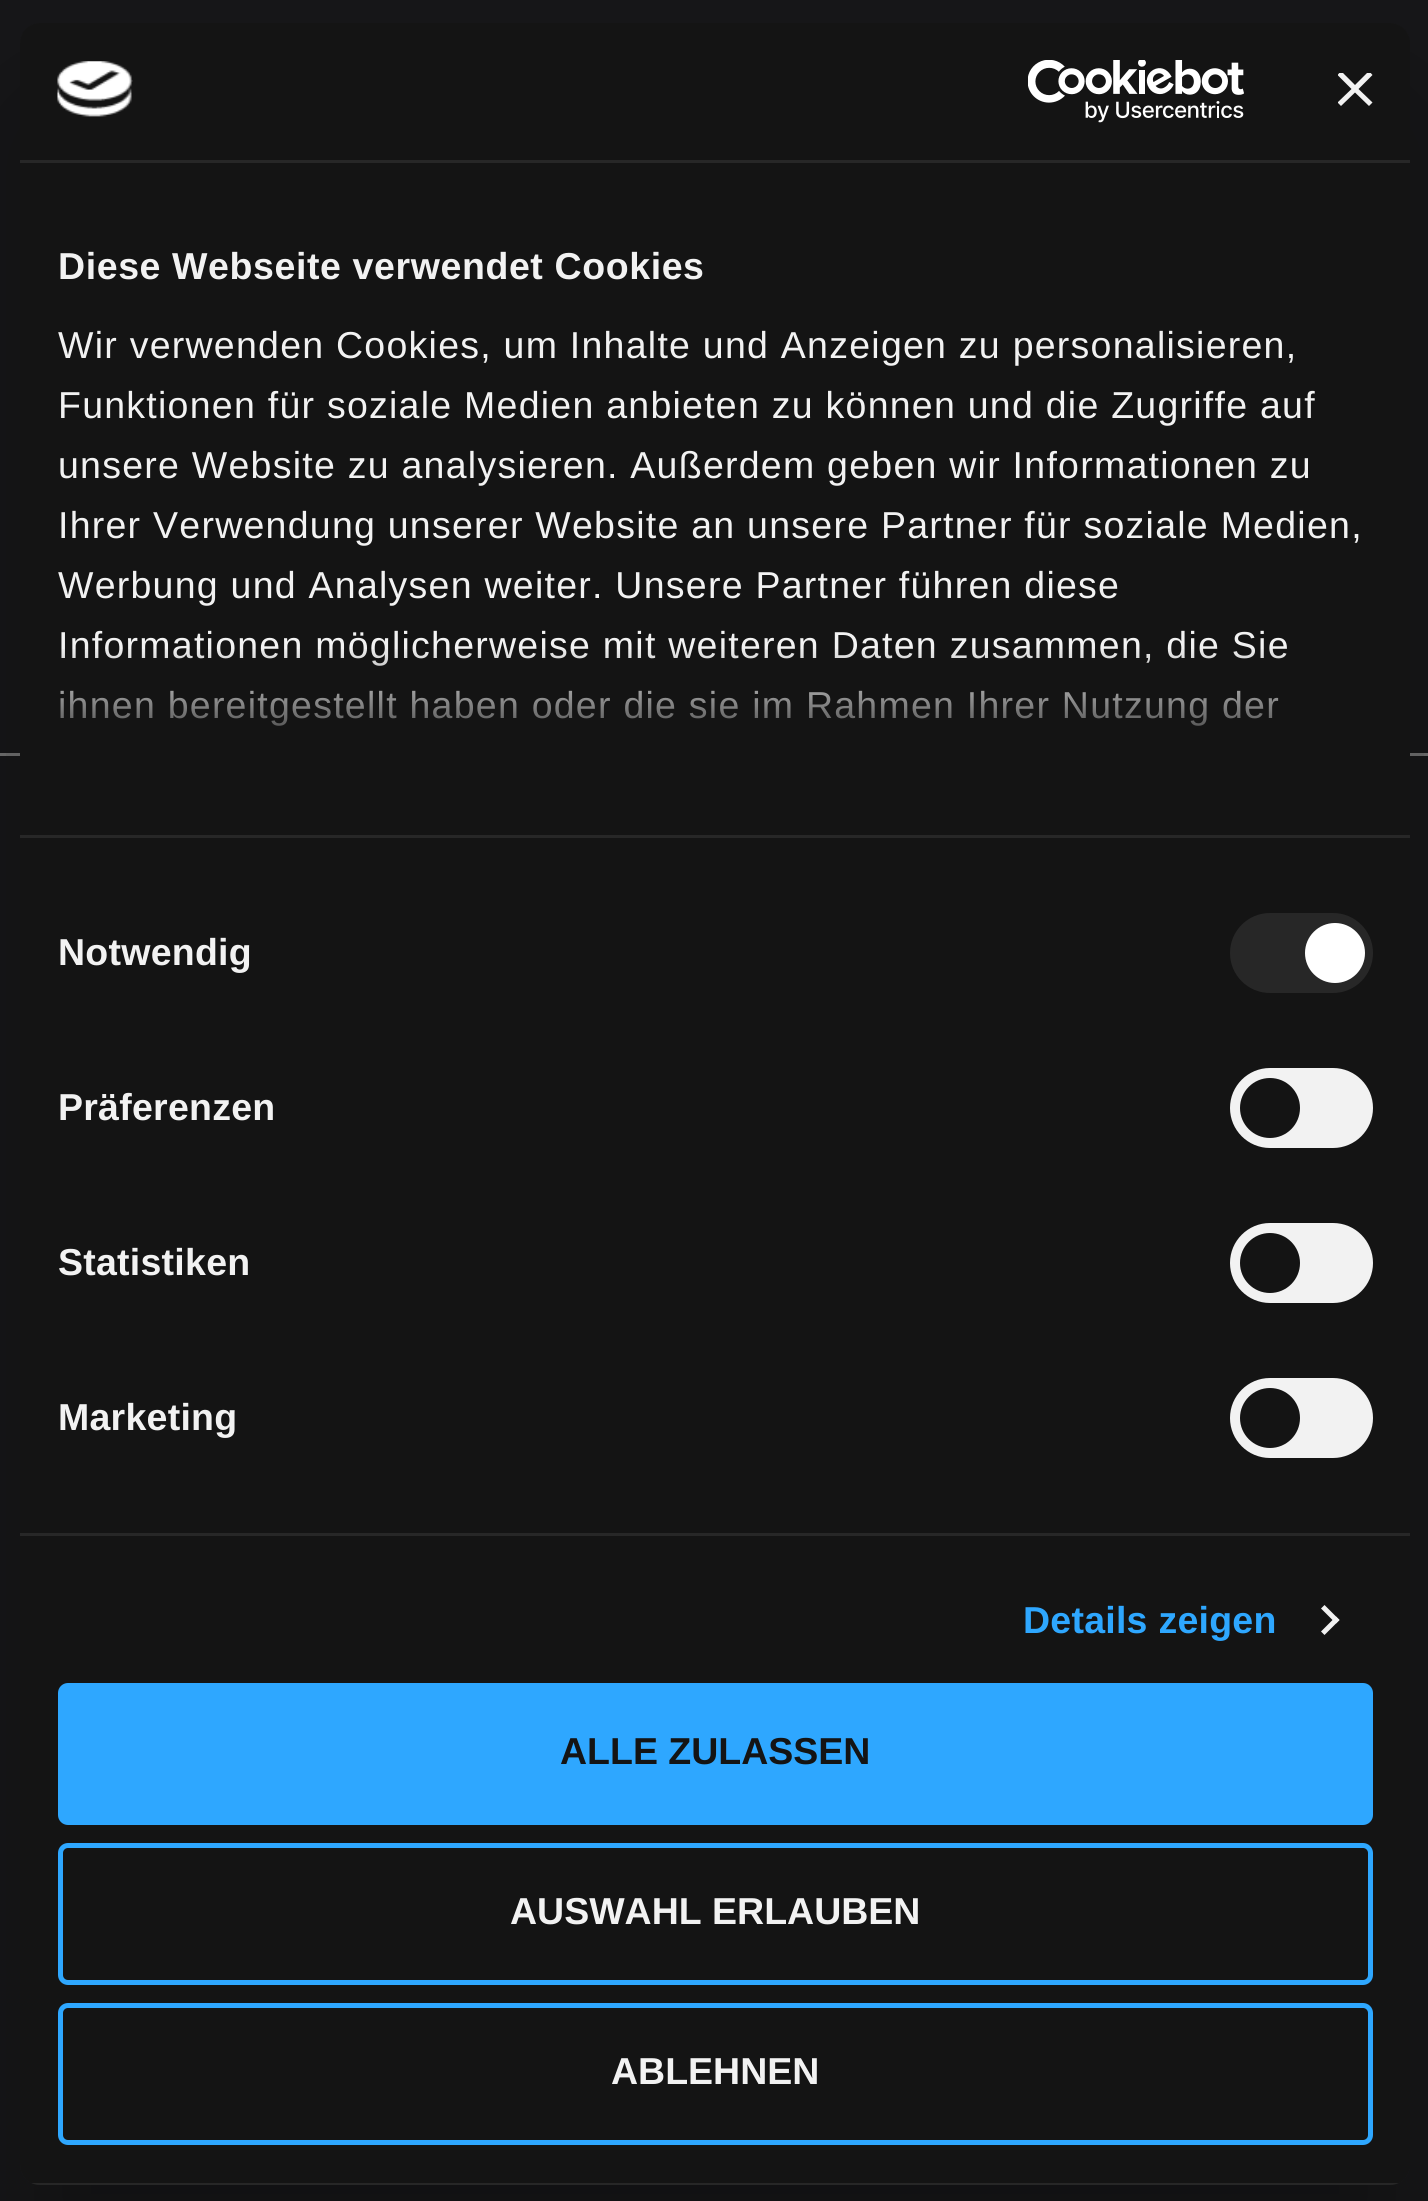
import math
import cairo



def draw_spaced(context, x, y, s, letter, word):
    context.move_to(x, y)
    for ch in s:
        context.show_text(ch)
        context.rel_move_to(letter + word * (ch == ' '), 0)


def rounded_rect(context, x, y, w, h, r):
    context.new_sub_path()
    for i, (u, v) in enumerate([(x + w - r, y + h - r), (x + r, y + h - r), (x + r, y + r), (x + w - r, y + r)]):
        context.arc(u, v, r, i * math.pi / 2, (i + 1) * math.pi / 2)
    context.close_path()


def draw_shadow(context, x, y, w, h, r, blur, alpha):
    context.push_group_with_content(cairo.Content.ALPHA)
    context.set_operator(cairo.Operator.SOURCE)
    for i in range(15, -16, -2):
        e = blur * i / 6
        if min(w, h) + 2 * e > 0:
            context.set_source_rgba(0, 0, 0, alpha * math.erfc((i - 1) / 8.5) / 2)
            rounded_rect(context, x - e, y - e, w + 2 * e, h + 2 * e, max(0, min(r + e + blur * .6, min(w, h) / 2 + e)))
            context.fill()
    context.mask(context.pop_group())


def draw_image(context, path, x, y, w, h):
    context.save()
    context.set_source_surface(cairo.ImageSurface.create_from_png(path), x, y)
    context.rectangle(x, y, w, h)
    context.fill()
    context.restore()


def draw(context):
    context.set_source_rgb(23 / 255, 23 / 255, 25 / 255)
    context.paint()
    context.set_source_rgb(115 / 255, 115 / 255, 115 / 255)
    context.rectangle(0, 753, 1428, 3)
    context.fill()
    context.save()
    context.set_fill_rule(cairo.FillRule.EVEN_ODD)
    context.new_path()
    context.move_to(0, 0)
    context.line_to(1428, 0)
    context.line_to(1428, 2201)
    context.line_to(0, 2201)
    context.close_path()
    context.move_to(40, 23)
    context.line_to(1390, 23)
    context.curve_to(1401, 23, 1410, 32, 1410, 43)
    context.line_to(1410, 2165)
    context.curve_to(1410, 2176, 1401, 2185, 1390, 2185)
    context.line_to(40, 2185)
    context.curve_to(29, 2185, 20, 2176, 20, 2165)
    context.line_to(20, 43)
    context.curve_to(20, 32, 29, 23, 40, 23)
    context.close_path()
    context.clip()
    context.set_source_rgb(0, 0, 0)
    draw_shadow(context, 20, 103, 1390, 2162, 20, 85, 0.3)
    context.restore()
    context.set_source_rgb(20 / 255, 20 / 255, 20 / 255)
    rounded_rect(context, 20, 23, 1390, 2162, 20)
    context.fill()
    context.set_source_rgb(39 / 255, 39 / 255, 39 / 255)
    context.rectangle(20, 160, 1390, 3)
    context.fill()
    draw_image(context, "images/1.png", 57, 61, 76, 56)
    draw_image(context, "images/2.png", 1028, 60, 216, 63)
    context.save()
    context.rectangle(1338, 73, 35, 35)
    context.clip()
    context.set_source_rgb(242 / 255, 242 / 255, 242 / 255)
    context.new_path()
    context.move_to(1372.5, 75)
    context.line_to(1369, 71)
    context.line_to(1355, 85)
    context.line_to(1341, 71)
    context.line_to(1337.5, 75)
    context.line_to(1351.5, 89)
    context.line_to(1337.5, 102.5)
    context.line_to(1341, 106)
    context.line_to(1355, 92.5)
    context.line_to(1369, 106)
    context.line_to(1372.5, 102.5)
    context.line_to(1358.5, 89)
    context.close_path()
    context.fill()
    context.restore()
    context.rectangle(20, 835, 1390, 3)
    context.fill()
    context.rectangle(20, 1533, 1390, 3)
    context.fill()
    rounded_rect(context, 1230, 913, 143, 80, 40)
    context.fill()
    context.set_source_rgb(1, 1, 1)
    context.arc(1335, 953, 30, 0, 2 * math.pi)
    context.fill()
    context.set_source_rgb(242 / 255, 242 / 255, 242 / 255)
    rounded_rect(context, 1230, 1068, 143, 80, 40)
    context.fill()
    context.set_source_rgb(20 / 255, 20 / 255, 20 / 255)
    context.arc(1270, 1108, 30, 0, 2 * math.pi)
    context.fill()
    context.set_source_rgb(242 / 255, 242 / 255, 242 / 255)
    rounded_rect(context, 1230, 1223, 143, 80, 40)
    context.fill()
    context.set_source_rgb(20 / 255, 20 / 255, 20 / 255)
    context.arc(1270, 1263, 30, 0, 2 * math.pi)
    context.fill()
    context.set_source_rgb(242 / 255, 242 / 255, 242 / 255)
    rounded_rect(context, 1230, 1378, 143, 80, 40)
    context.fill()
    context.set_source_rgb(20 / 255, 20 / 255, 20 / 255)
    context.arc(1270, 1418, 30, 0, 2 * math.pi)
    context.fill()
    context.set_source_rgb(242 / 255, 242 / 255, 242 / 255)
    context.new_path()
    context.move_to(1324.5, 1605)
    context.line_to(1339.5, 1620)
    context.line_to(1336, 1623.5)
    context.line_to(1321, 1608.5)
    context.close_path()
    context.fill()
    context.new_path()
    context.move_to(1336, 1616.5)
    context.line_to(1339.5, 1620)
    context.line_to(1324.5, 1635)
    context.line_to(1321, 1631.5)
    context.close_path()
    context.fill()
    context.save()
    rounded_rect(context, 20, 23, 1390, 2162, 20)
    context.clip()
    context.set_source_rgb(39 / 255, 39 / 255, 39 / 255)
    context.rectangle(31, 2183, 1368, 2)
    context.fill()
    context.restore()
    context.set_source_rgb(46 / 255, 167 / 255, 1)
    rounded_rect(context, 60.5, 1685.5, 1310, 137, 7.5)
    context.fill_preserve()
    context.set_line_width(5)
    context.stroke()
    rounded_rect(context, 60.5, 1845.5, 1310, 137, 7.5)
    context.stroke()
    rounded_rect(context, 60.5, 2005.5, 1310, 137, 7.5)
    context.stroke()
    context.select_font_face("Liberation Sans", cairo.FontSlant.NORMAL, cairo.FontWeight.BOLD)
    context.set_font_size(37.5)
    context.set_source_rgb(242 / 255, 242 / 255, 242 / 255)
    draw_spaced(context, 58, 279, "Diese Webseite verwendet Cookies", 0.6, 0)
    context.select_font_face("Liberation Sans")
    draw_spaced(context, 58, 358, "Wir verwenden Cookies, um Inhalte und Anzeigen zu personalisieren,", 1.25, 0)
    draw_spaced(context, 58, 418, "Funktionen für soziale Medien anbieten zu können und die Zugriffe auf", 1.25, 0)
    draw_spaced(context, 58, 478, "unsere Website zu analysieren. Außerdem geben wir Informationen zu", 1.25, 0)
    draw_spaced(context, 58, 538, "Ihrer Verwendung unserer Website an unsere Partner für soziale Medien,", 1.25, 0)
    draw_spaced(context, 58, 598, "Werbung und Analysen weiter. Unsere Partner führen diese", 1.25, 0)
    draw_spaced(context, 58, 658, "Informationen möglicherweise mit weiteren Daten zusammen, die Sie", 1.25, 0)
    draw_spaced(context, 58, 718, "ihnen bereitgestellt haben oder die sie im Rahmen Ihrer Nutzung der", 1.25, 0)
    gradient = cairo.LinearGradient(699, 834, 699, 646)
    gradient.add_color_stop_rgba(0, 20 / 255, 20 / 255, 20 / 255, 1)
    gradient.add_color_stop_rgba(0.5, 20 / 255, 20 / 255, 20 / 255, 0.8)
    gradient.add_color_stop_rgba(1, 20 / 255, 20 / 255, 20 / 255, 0)
    context.set_source(gradient)
    context.rectangle(60, 649, 1226, 77)
    context.fill()
    context.select_font_face("Liberation Sans", cairo.FontSlant.NORMAL, cairo.FontWeight.BOLD)
    context.set_source_rgb(242 / 255, 242 / 255, 242 / 255)
    draw_spaced(context, 58, 965, "Notwendig", 0.25, 0)
    draw_spaced(context, 58, 1120, "Präferenzen", 0.25, 0)
    draw_spaced(context, 58, 1275, "Statistiken", 0.25, 0)
    draw_spaced(context, 58, 1430, "Marketing", 0.25, 0)
    context.set_source_rgb(46 / 255, 167 / 255, 1)
    draw_spaced(context, 1023, 1633, "Details zeigen", 0.25, 0)
    context.set_source_rgb(20 / 255, 20 / 255, 20 / 255)
    context.move_to(560, 1764)
    context.show_text("ALLE ZULASSEN")
    context.set_source_rgb(242 / 255, 242 / 255, 242 / 255)
    context.move_to(510, 1924)
    context.show_text("AUSWAHL ERLAUBEN")
    context.move_to(611, 2084)
    context.show_text("ABLEHNEN")


surface = cairo.ImageSurface(cairo.Format.RGB24, 1428, 2201)
context = cairo.Context(surface)
options = cairo.FontOptions()
options.set_hint_metrics(cairo.HintMetrics.OFF)
options.set_hint_style(cairo.HintStyle.NONE)
context.set_font_options(options)
context.set_miter_limit(4)
draw(context)
surface.write_to_png("out.png")
